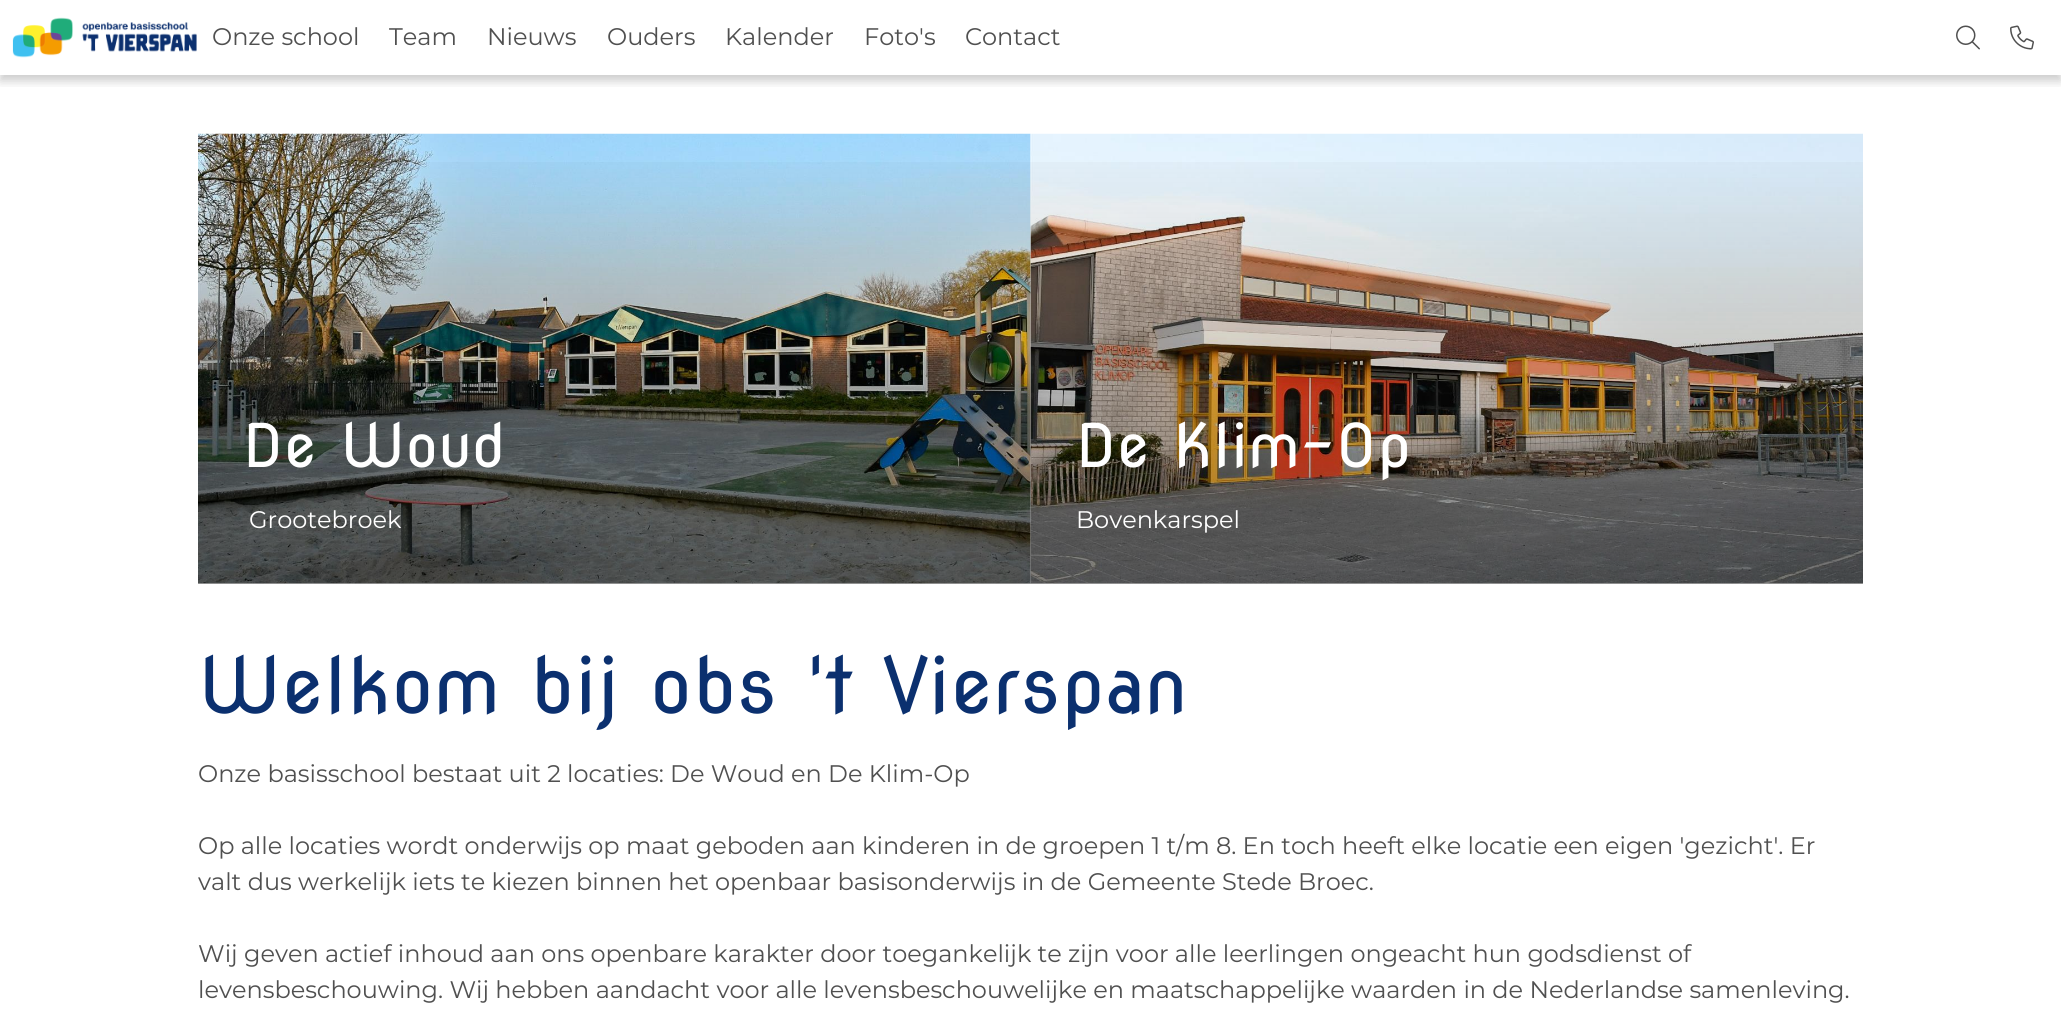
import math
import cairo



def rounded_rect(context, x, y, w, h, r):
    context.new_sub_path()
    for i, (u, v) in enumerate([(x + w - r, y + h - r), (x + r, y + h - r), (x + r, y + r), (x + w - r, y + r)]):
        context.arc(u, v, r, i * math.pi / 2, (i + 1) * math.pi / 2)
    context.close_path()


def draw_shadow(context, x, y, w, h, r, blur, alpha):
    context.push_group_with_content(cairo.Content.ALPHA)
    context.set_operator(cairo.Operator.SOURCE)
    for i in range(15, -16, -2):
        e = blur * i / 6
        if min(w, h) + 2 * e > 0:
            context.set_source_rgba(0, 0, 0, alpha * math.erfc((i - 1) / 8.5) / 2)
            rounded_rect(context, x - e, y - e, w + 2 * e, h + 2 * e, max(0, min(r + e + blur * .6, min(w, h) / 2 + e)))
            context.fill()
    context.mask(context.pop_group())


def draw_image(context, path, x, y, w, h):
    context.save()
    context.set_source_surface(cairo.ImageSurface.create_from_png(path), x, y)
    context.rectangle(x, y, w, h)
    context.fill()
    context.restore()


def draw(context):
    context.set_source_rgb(1, 1, 1)
    context.paint()
    context.save()
    context.rectangle(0, 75, 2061, 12)
    context.clip()
    context.set_source_rgb(0, 0, 0)
    draw_shadow(context, 0, 6, 2061, 75, 0, 5, 0.2)
    context.restore()
    draw_image(context, "images/1.png", 12, 17, 185, 41)
    draw_image(context, "images/2.png", 1956, 25, 24, 25)
    draw_image(context, "images/3.png", 2010, 25, 24, 25)
    draw_image(context, "images/4.png", 198, 133, 833, 451)
    draw_image(context, "images/5.png", 1030, 133, 833, 451)
    gradient = cairo.LinearGradient(614, 584, 614, 134)
    gradient.add_color_stop_rgba(0, 0, 0, 0, 0.35)
    gradient.add_color_stop_rgba(1, 0, 0, 0, 0)
    context.set_source(gradient)
    context.rectangle(198, 162, 833, 422)
    context.fill()
    gradient = cairo.LinearGradient(1447, 584, 1447, 134)
    gradient.add_color_stop_rgba(0, 0, 0, 0, 0.35)
    gradient.add_color_stop_rgba(1, 0, 0, 0, 0)
    context.set_source(gradient)
    context.rectangle(1031, 162, 832, 422)
    context.fill()
    context.select_font_face("Montserrat Thin")
    context.set_font_size(24)
    context.set_source_rgb(80 / 255, 80 / 255, 80 / 255)
    context.move_to(212, 45)
    context.show_text("Onze school")
    context.move_to(389, 45)
    context.show_text("Team")
    context.move_to(487, 45)
    context.show_text("Nieuws")
    context.move_to(607, 45)
    context.show_text("Ouders")
    context.move_to(725, 45)
    context.show_text("Kalender")
    context.move_to(864, 45)
    context.show_text("Foto's")
    context.move_to(965, 45)
    context.show_text("Contact")
    context.select_font_face("Nova Round")
    context.set_font_size(60)
    context.set_source_rgb(1, 1, 1)
    context.move_to(243, 467)
    context.show_text("De Woud")
    context.select_font_face("Montserrat Thin")
    context.set_font_size(24)
    context.move_to(249, 528)
    context.show_text("Grootebroek")
    context.select_font_face("Nova Round")
    context.set_font_size(60)
    context.move_to(1076, 467)
    context.show_text("De Klim-Op")
    context.select_font_face("Montserrat Thin")
    context.set_font_size(24)
    context.move_to(1076, 528)
    context.show_text("Bovenkarspel")
    context.select_font_face("Nova Round")
    context.set_font_size(77.1)
    context.set_source_rgb(11 / 255, 48 / 255, 111 / 255)
    context.move_to(198, 713)
    context.show_text("Welkom bij obs 't Vierspan")
    context.select_font_face("Montserrat Thin")
    context.set_font_size(24)
    context.set_source_rgb(80 / 255, 80 / 255, 80 / 255)
    context.move_to(198, 782)
    context.show_text("Onze basisschool bestaat uit 2 locaties: De Woud en De Klim-Op")
    context.move_to(198, 854)
    context.show_text("Op alle locaties wordt onderwijs op maat geboden aan kinderen in de groepen 1 t/m 8. En toch heeft elke locatie een eigen 'gezicht'. Er")
    context.move_to(198, 890)
    context.show_text("valt dus werkelijk iets te kiezen binnen het openbaar basisonderwijs in de Gemeente Stede Broec.")
    context.move_to(198, 962)
    context.show_text("Wij geven actief inhoud aan ons openbare karakter door toegankelijk te zijn voor alle leerlingen ongeacht hun godsdienst of")
    context.move_to(198, 998)
    context.show_text("levensbeschouwing. Wij hebben aandacht voor alle levensbeschouwelijke en maatschappelijke waarden in de Nederlandse samenleving.")


surface = cairo.ImageSurface(cairo.Format.RGB24, 2061, 1009)
context = cairo.Context(surface)
options = cairo.FontOptions()
options.set_hint_metrics(cairo.HintMetrics.OFF)
options.set_hint_style(cairo.HintStyle.NONE)
context.set_font_options(options)
context.set_miter_limit(4)
draw(context)
surface.write_to_png("out.png")
